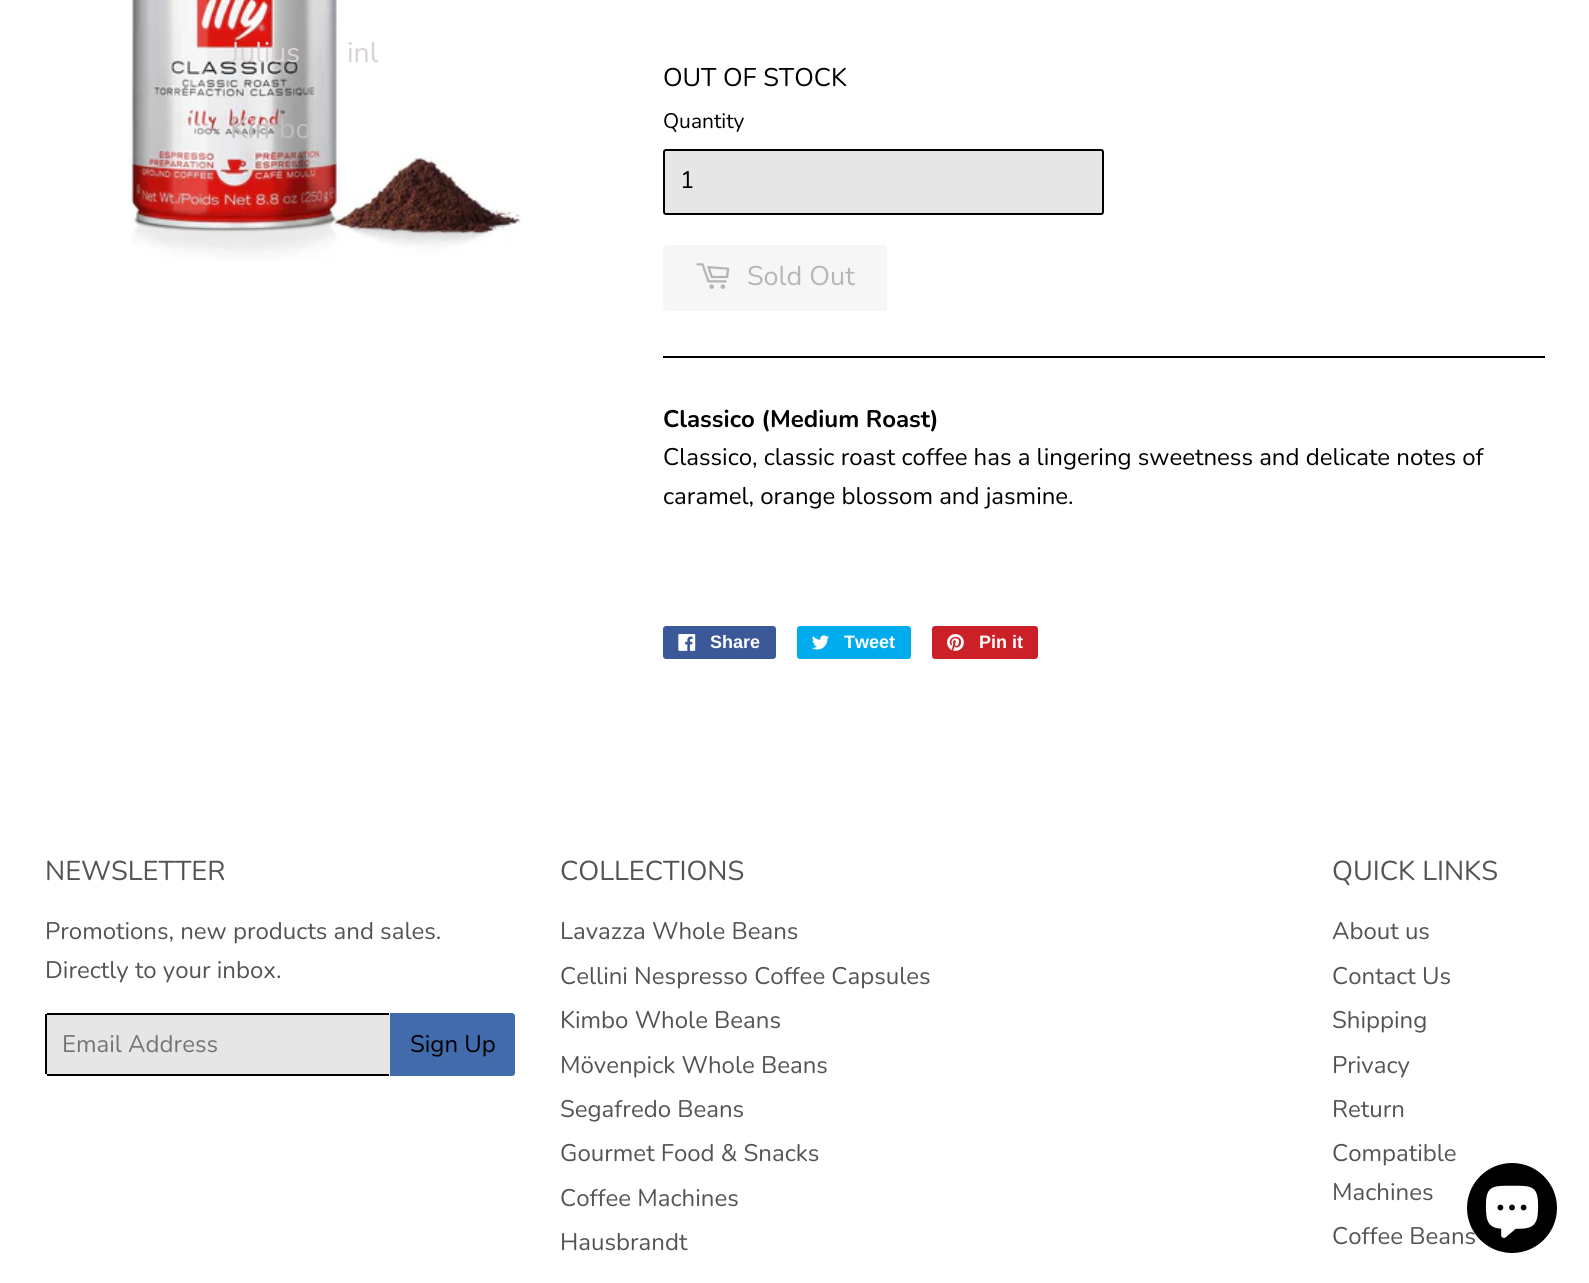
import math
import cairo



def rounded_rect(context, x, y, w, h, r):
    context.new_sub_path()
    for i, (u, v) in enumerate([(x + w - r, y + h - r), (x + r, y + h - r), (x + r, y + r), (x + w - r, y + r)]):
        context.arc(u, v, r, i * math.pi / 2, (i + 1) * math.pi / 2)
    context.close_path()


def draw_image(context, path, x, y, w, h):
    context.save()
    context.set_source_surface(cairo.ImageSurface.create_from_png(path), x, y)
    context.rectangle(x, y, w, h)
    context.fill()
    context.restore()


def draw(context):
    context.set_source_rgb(1, 1, 1)
    context.paint()
    draw_image(context, "images/1.png", 128, 0, 393, 260)
    context.set_source_rgb(230 / 255, 230 / 255, 230 / 255)
    rounded_rect(context, 664, 150, 439, 64, 2)
    context.fill_preserve()
    context.set_source_rgb(0, 0, 0)
    context.stroke()
    context.set_source_rgb(246 / 255, 246 / 255, 246 / 255)
    rounded_rect(context, 663, 245, 224, 66, 3)
    context.fill()
    draw_image(context, "images/2.png", 696, 263, 34, 26)
    context.set_source_rgb(0, 0, 0)
    context.rectangle(663, 356, 882, 2)
    context.fill()
    context.set_source_rgb(59 / 255, 89 / 255, 152 / 255)
    rounded_rect(context, 663, 626, 113, 33, 3)
    context.fill()
    draw_image(context, "images/3.png", 678, 634, 18, 17)
    context.set_source_rgb(0, 172 / 255, 237 / 255)
    rounded_rect(context, 797, 626, 114, 33, 3)
    context.fill()
    draw_image(context, "images/4.png", 812, 635, 17, 15)
    context.set_source_rgb(203 / 255, 32 / 255, 39 / 255)
    rounded_rect(context, 932, 626, 106, 33, 3)
    context.fill()
    draw_image(context, "images/5.png", 947, 634, 17, 17)
    context.set_source_rgb(230 / 255, 230 / 255, 230 / 255)
    rounded_rect(context, 45, 1013, 345, 63, 3)
    context.fill()
    context.set_source_rgb(0, 0, 0)
    context.rectangle(47, 1013, 342, 2)
    context.fill()
    context.rectangle(47, 1074, 342, 2)
    context.fill()
    context.rectangle(45, 1014, 2, 60)
    context.fill()
    context.set_source_rgb(65 / 255, 107 / 255, 171 / 255)
    context.new_path()
    context.move_to(390, 1013)
    context.line_to(512, 1013)
    context.curve_to(513.5, 1013, 515, 1014.5, 515, 1016)
    context.line_to(515, 1073)
    context.curve_to(515, 1074.5, 513.5, 1076, 512, 1076)
    context.line_to(390, 1076)
    context.close_path()
    context.fill()
    context.select_font_face("Nunito")
    context.set_font_size(28.5)
    context.set_source_rgb(219 / 255, 210 / 255, 211 / 255)
    context.move_to(230, 62)
    context.show_text("Julius")
    context.move_to(347, 62)
    context.show_text("inl")
    context.set_source_rgb(195 / 255, 188 / 255, 188 / 255)
    context.move_to(230, 138)
    context.show_text("Kimbo")
    context.set_font_size(25.5)
    context.set_source_rgb(0, 0, 0)
    context.move_to(663, 86)
    context.show_text("OUT OF STOCK")
    context.set_font_size(21)
    context.move_to(663, 128)
    context.show_text("Quantity")
    context.set_font_size(24)
    context.move_to(680, 188)
    context.show_text("1")
    context.set_font_size(27)
    context.set_source_rgb(182 / 255, 182 / 255, 182 / 255)
    context.move_to(747, 285)
    context.show_text("Sold Out")
    context.select_font_face("Nunito", cairo.FontSlant.NORMAL, cairo.FontWeight.BOLD)
    context.set_font_size(24)
    context.set_source_rgb(0, 0, 0)
    context.move_to(663, 427)
    context.show_text("Classico (Medium Roast)")
    context.select_font_face("Nunito")
    context.move_to(663, 465)
    context.show_text("Classico, classic roast coffee has a lingering sweetness and delicate notes of")
    context.move_to(663, 504)
    context.show_text("caramel, orange blossom and jasmine.")
    context.select_font_face("Liberation Sans", cairo.FontSlant.NORMAL, cairo.FontWeight.BOLD)
    context.set_font_size(18)
    context.set_source_rgb(1, 1, 1)
    context.move_to(710, 648)
    context.show_text("Share")
    context.move_to(844, 648)
    context.show_text("Tweet")
    context.move_to(979, 648)
    context.show_text("Pin it")
    context.select_font_face("Nunito")
    context.set_font_size(27.25)
    context.set_source_rgb(84 / 255, 84 / 255, 84 / 255)
    context.move_to(45, 880)
    context.show_text("NEWSLETTER")
    context.set_font_size(24)
    context.move_to(45, 939)
    context.show_text("Promotions, new products and sales.")
    context.move_to(45, 978)
    context.show_text("Directly to your inbox.")
    context.set_source_rgb(117 / 255, 117 / 255, 117 / 255)
    context.move_to(62, 1052)
    context.show_text("Email Address")
    context.set_source_rgb(0, 0, 0)
    context.move_to(410, 1052)
    context.show_text("Sign Up")
    context.set_font_size(27.25)
    context.set_source_rgb(84 / 255, 84 / 255, 84 / 255)
    context.move_to(560, 880)
    context.show_text("COLLECTIONS")
    context.set_font_size(24)
    context.move_to(560, 939)
    context.show_text("Lavazza Whole Beans")
    context.move_to(560, 984)
    context.show_text("Cellini Nespresso Coffee Capsules")
    context.move_to(560, 1028)
    context.show_text("Kimbo Whole Beans")
    context.move_to(560, 1073)
    context.show_text("Mövenpick Whole Beans")
    context.move_to(560, 1117)
    context.show_text("Segafredo Beans")
    context.move_to(560, 1161)
    context.show_text("Gourmet Food & Snacks")
    context.move_to(560, 1206)
    context.show_text("Coffee Machines")
    context.move_to(560, 1250)
    context.show_text("Hausbrandt")
    context.set_font_size(27.25)
    context.move_to(1332, 880)
    context.show_text("QUICK LINKS")
    context.set_font_size(24)
    context.move_to(1332, 939)
    context.show_text("About us")
    context.move_to(1332, 984)
    context.show_text("Contact Us")
    context.move_to(1332, 1028)
    context.show_text("Shipping")
    context.move_to(1332, 1073)
    context.show_text("Privacy")
    context.move_to(1332, 1117)
    context.show_text("Return")
    context.move_to(1332, 1161)
    context.show_text("Compatible")
    context.move_to(1332, 1200)
    context.show_text("Machines")
    context.move_to(1332, 1244)
    context.show_text("Coffee Beans")
    context.set_source_rgb(0, 0, 0)
    context.new_path()
    context.arc(1512, 1208, 45, 0, 2 * math.pi)
    context.fill()
    draw_image(context, "images/6.png", 1485, 1185, 54, 53)


surface = cairo.ImageSurface(cairo.Format.RGB24, 1589, 1283)
context = cairo.Context(surface)
options = cairo.FontOptions()
options.set_hint_metrics(cairo.HintMetrics.OFF)
options.set_hint_style(cairo.HintStyle.NONE)
context.set_font_options(options)
context.set_miter_limit(4)
draw(context)
surface.write_to_png("out.png")
